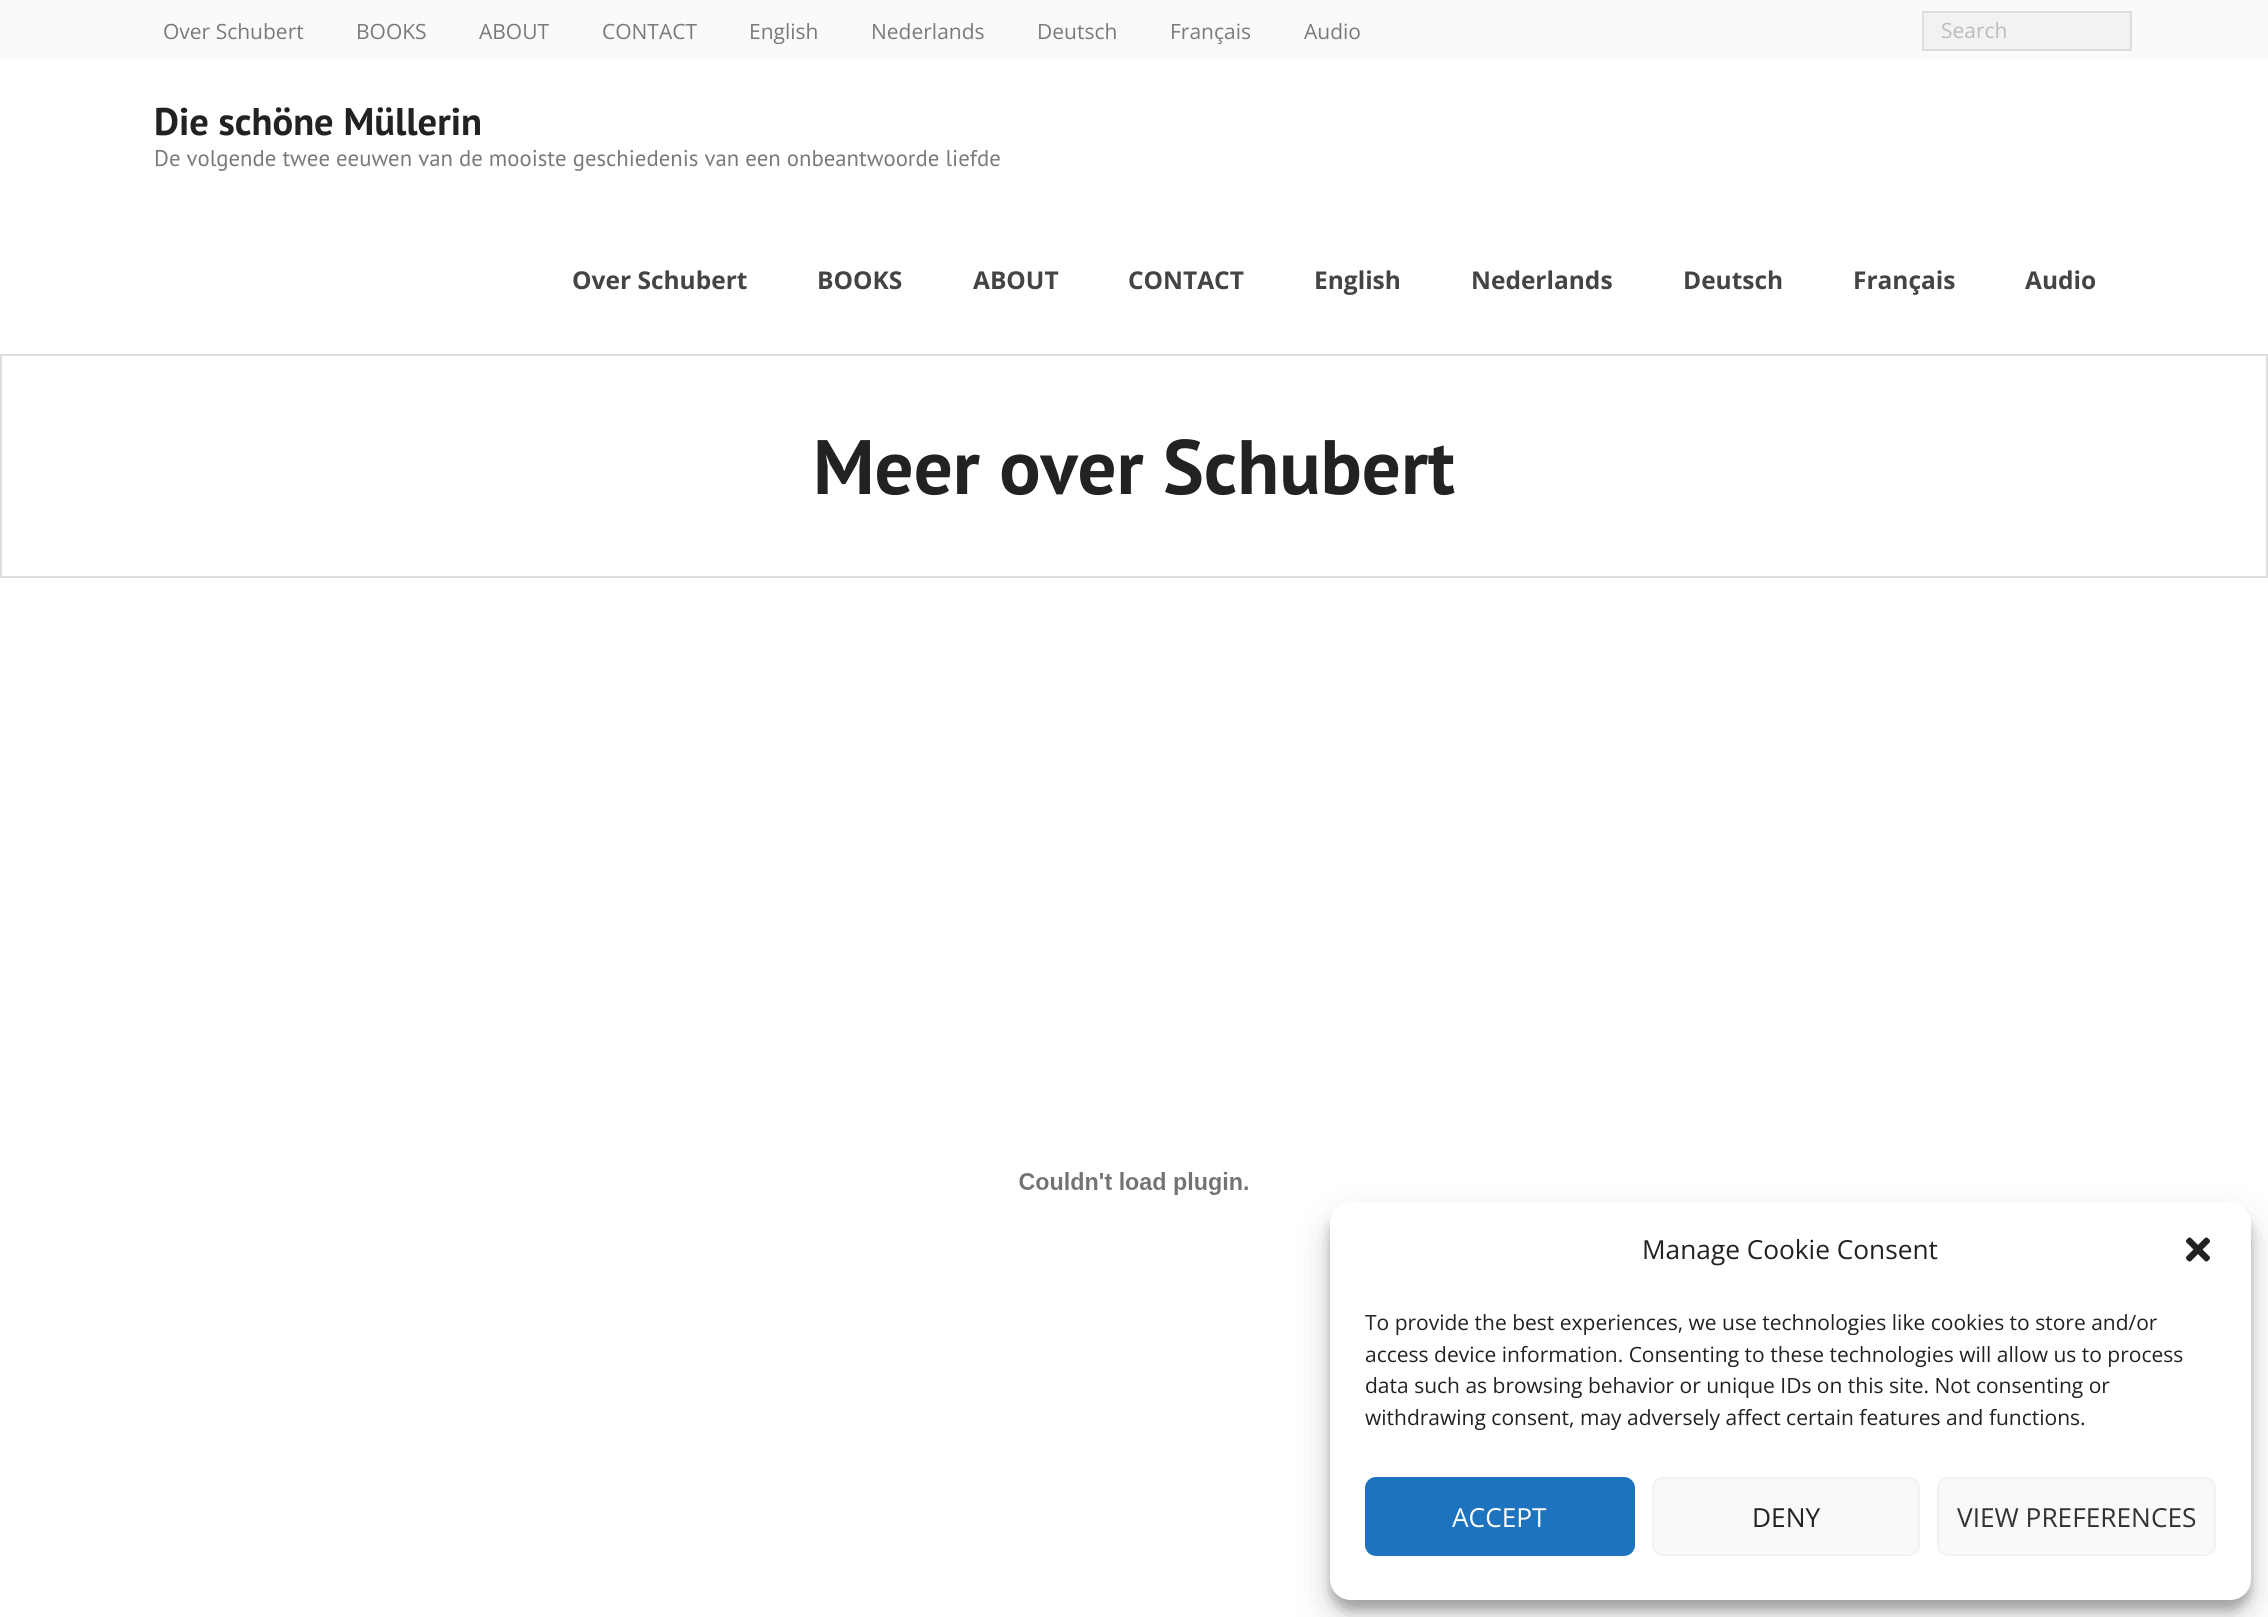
import math
import cairo



def rounded_rect(context, x, y, w, h, r):
    context.new_sub_path()
    for i, (u, v) in enumerate([(x + w - r, y + h - r), (x + r, y + h - r), (x + r, y + r), (x + w - r, y + r)]):
        context.arc(u, v, r, i * math.pi / 2, (i + 1) * math.pi / 2)
    context.close_path()


def draw_shadow(context, x, y, w, h, r, blur, alpha):
    context.push_group_with_content(cairo.Content.ALPHA)
    context.set_operator(cairo.Operator.SOURCE)
    for i in range(15, -16, -2):
        e = blur * i / 6
        if min(w, h) + 2 * e > 0:
            context.set_source_rgba(0, 0, 0, alpha * math.erfc((i - 1) / 8.5) / 2)
            rounded_rect(context, x - e, y - e, w + 2 * e, h + 2 * e, max(0, min(r + e + blur * .6, min(w, h) / 2 + e)))
            context.fill()
    context.mask(context.pop_group())


def draw_image(context, path, x, y, w, h):
    context.save()
    context.set_source_surface(cairo.ImageSurface.create_from_png(path), x, y)
    context.rectangle(x, y, w, h)
    context.fill()
    context.restore()


def draw(context):
    context.set_source_rgb(1, 1, 1)
    context.paint()
    context.set_source_rgb(221 / 255, 221 / 255, 221 / 255)
    context.rectangle(2266, 355, 2, 223)
    context.fill()
    context.rectangle(0, 576, 2268, 2)
    context.fill()
    context.rectangle(0, 355, 2, 223)
    context.fill()
    context.rectangle(0, 354, 2268, 2)
    context.fill()
    context.set_source_rgb(250 / 255, 250 / 255, 250 / 255)
    context.rectangle(0, 0, 2268, 60)
    context.fill()
    context.set_source_rgb(242 / 255, 242 / 255, 242 / 255)
    context.rectangle(1923, 12, 208, 38)
    context.fill_preserve()
    context.set_source_rgb(221 / 255, 221 / 255, 221 / 255)
    context.stroke()
    draw_image(context, "images/1.png", 1019, 1172, 229, 23)
    context.set_source_rgb(0, 0, 0)
    draw_shadow(context, 1330, 1213, 921, 397, 21, 5, 0.23)
    draw_shadow(context, 1330, 1220, 921, 397, 21, 17.5, 0.19)
    context.set_source_rgb(1, 1, 1)
    rounded_rect(context, 1330, 1202, 921, 398, 21)
    context.fill()
    draw_image(context, "images/2.png", 2186, 1237, 24, 25)
    context.set_source_rgb(30 / 255, 115 / 255, 190 / 255)
    rounded_rect(context, 1366, 1478, 268, 77, 10)
    context.fill_preserve()
    context.stroke()
    context.set_source_rgb(249 / 255, 249 / 255, 249 / 255)
    rounded_rect(context, 1653, 1478, 266, 77, 10)
    context.fill_preserve()
    context.set_source_rgb(242 / 255, 242 / 255, 242 / 255)
    context.stroke()
    context.set_source_rgb(249 / 255, 249 / 255, 249 / 255)
    rounded_rect(context, 1938, 1478, 277, 77, 10)
    context.fill_preserve()
    context.set_source_rgb(242 / 255, 242 / 255, 242 / 255)
    context.stroke()
    context.select_font_face("Open Sans")
    context.set_font_size(21)
    context.set_source_rgb(122 / 255, 122 / 255, 122 / 255)
    context.move_to(163, 39)
    context.show_text("Over Schubert")
    context.move_to(356, 39)
    context.show_text("BOOKS")
    context.move_to(479, 39)
    context.show_text("ABOUT")
    context.move_to(602, 39)
    context.show_text("CONTACT")
    context.move_to(749, 39)
    context.show_text("English")
    context.move_to(871, 39)
    context.show_text("Nederlands")
    context.move_to(1037, 39)
    context.show_text("Deutsch")
    context.move_to(1170, 39)
    context.show_text("Français")
    context.move_to(1304, 39)
    context.show_text("Audio")
    context.set_source_rgb(187 / 255, 187 / 255, 187 / 255)
    context.move_to(1941, 38)
    context.show_text("Search")
    context.select_font_face("PT Sans", cairo.FontSlant.NORMAL, cairo.FontWeight.BOLD)
    context.set_font_size(38.5)
    context.set_source_rgb(34 / 255, 34 / 255, 34 / 255)
    context.move_to(154, 135)
    context.show_text("Die schöne Müllerin")
    context.select_font_face("PT Sans")
    context.set_font_size(22.75)
    context.set_source_rgb(122 / 255, 122 / 255, 122 / 255)
    context.move_to(154, 166)
    context.show_text("De volgende twee eeuwen van de mooiste geschiedenis van een onbeantwoorde liefde")
    context.select_font_face("Open Sans", cairo.FontSlant.NORMAL, cairo.FontWeight.BOLD)
    context.set_font_size(24.5)
    context.set_source_rgb(68 / 255, 68 / 255, 68 / 255)
    context.move_to(572, 289)
    context.show_text("Over Schubert")
    context.move_to(817, 289)
    context.show_text("BOOKS")
    context.move_to(973, 289)
    context.show_text("ABOUT")
    context.move_to(1128, 289)
    context.show_text("CONTACT")
    context.move_to(1314, 289)
    context.show_text("English")
    context.move_to(1471, 289)
    context.show_text("Nederlands")
    context.move_to(1683, 289)
    context.show_text("Deutsch")
    context.move_to(1853, 289)
    context.show_text("Français")
    context.move_to(2025, 289)
    context.show_text("Audio")
    context.select_font_face("PT Sans", cairo.FontSlant.NORMAL, cairo.FontWeight.BOLD)
    context.set_font_size(77)
    context.set_source_rgb(34 / 255, 34 / 255, 34 / 255)
    context.move_to(813, 494)
    context.show_text("Meer over Schubert")
    context.select_font_face("Open Sans")
    context.set_font_size(26.25)
    context.move_to(1642, 1259)
    context.show_text("Manage Cookie Consent")
    context.set_font_size(21)
    context.move_to(1365, 1330)
    context.show_text("To provide the best experiences, we use technologies like cookies to store and/or")
    context.move_to(1365, 1362)
    context.show_text("access device information. Consenting to these technologies will allow us to process")
    context.move_to(1365, 1393)
    context.show_text("data such as browsing behavior or unique IDs on this site. Not consenting or")
    context.move_to(1365, 1425)
    context.show_text("withdrawing consent, may adversely affect certain features and functions.")
    context.set_font_size(26.25)
    context.set_source_rgb(1, 1, 1)
    context.move_to(1452, 1527)
    context.show_text("ACCEPT")
    context.set_source_rgb(34 / 255, 34 / 255, 34 / 255)
    context.move_to(1752, 1527)
    context.show_text("DENY")
    context.set_source_rgb(51 / 255, 51 / 255, 51 / 255)
    context.move_to(1957, 1527)
    context.show_text("VIEW PREFERENCES")


surface = cairo.ImageSurface(cairo.Format.RGB24, 2268, 1617)
context = cairo.Context(surface)
options = cairo.FontOptions()
options.set_hint_metrics(cairo.HintMetrics.OFF)
options.set_hint_style(cairo.HintStyle.NONE)
context.set_font_options(options)
context.set_miter_limit(4)
draw(context)
surface.write_to_png("out.png")
